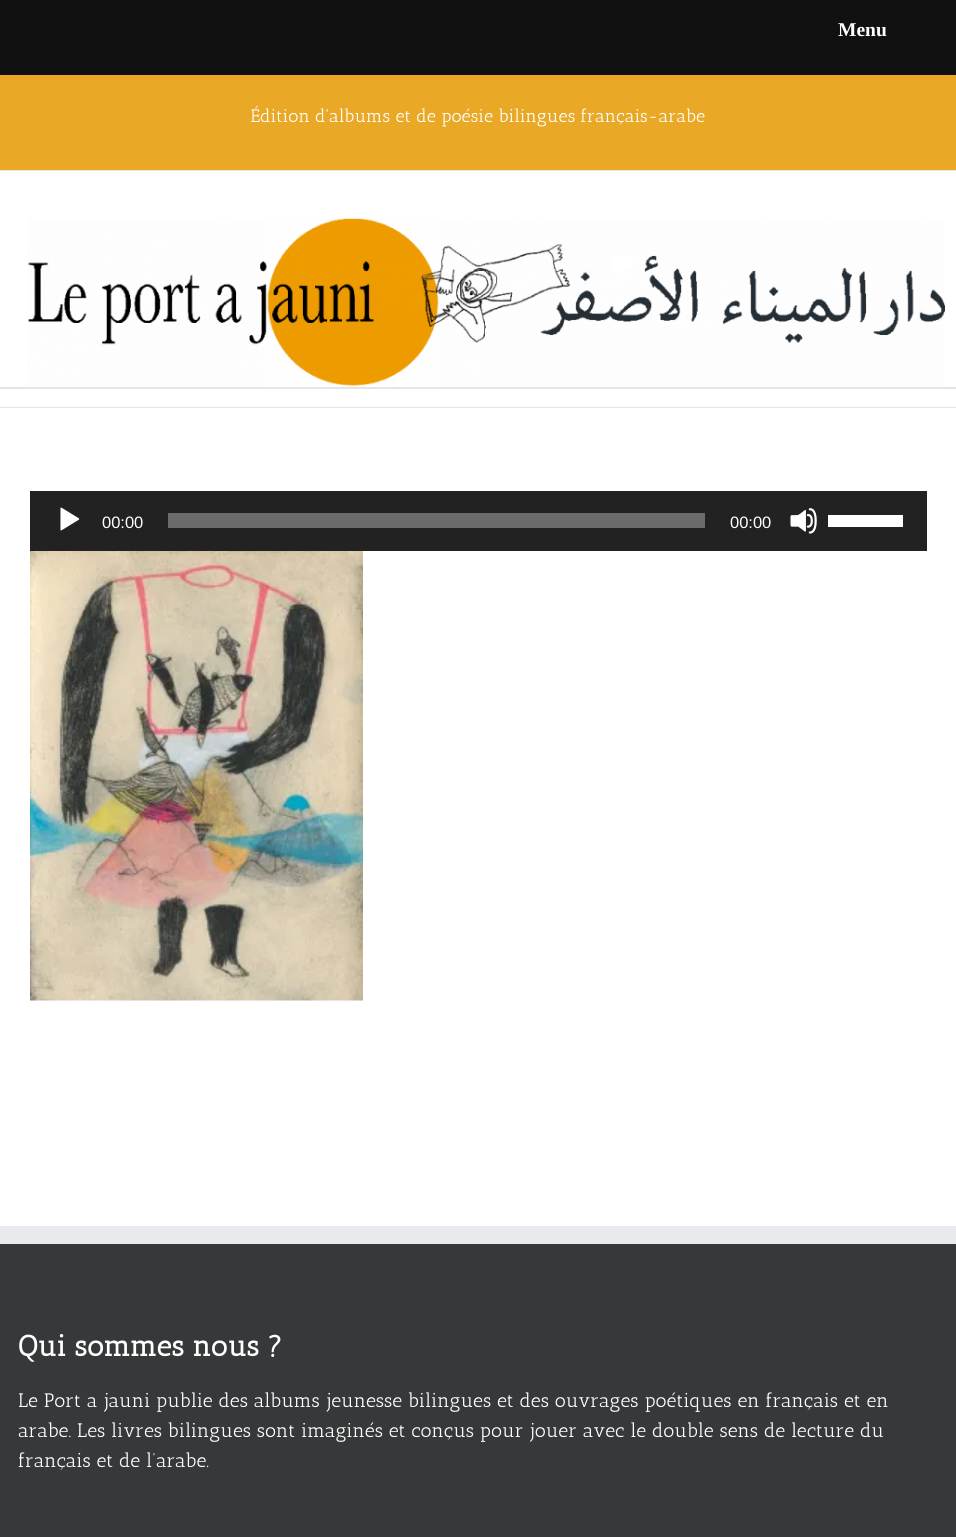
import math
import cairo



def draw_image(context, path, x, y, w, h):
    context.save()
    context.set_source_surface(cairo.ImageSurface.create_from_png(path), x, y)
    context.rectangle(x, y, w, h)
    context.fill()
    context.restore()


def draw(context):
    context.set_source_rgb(1, 1, 1)
    context.paint()
    context.set_source_rgb(17 / 255, 17 / 255, 17 / 255)
    context.rectangle(0, 0, 956, 75)
    context.fill()
    context.set_source_rgb(233 / 255, 168 / 255, 37 / 255)
    context.rectangle(0, 75, 956, 95)
    context.fill()
    context.set_source_rgb(229 / 255, 229 / 255, 229 / 255)
    context.rectangle(0, 170, 956, 1)
    context.fill()
    context.rectangle(0, 387, 956, 2)
    context.fill()
    draw_image(context, "images/1.png", 27, 218, 918, 169)
    context.rectangle(0, 407, 956, 1)
    context.fill()
    context.set_source_rgb(34 / 255, 34 / 255, 34 / 255)
    context.rectangle(30, 491, 897, 60)
    context.fill()
    draw_image(context, "images/2.png", 60, 507, 20, 24)
    context.set_source_rgb(107 / 255, 107 / 255, 107 / 255)
    context.rectangle(168, 513, 537, 15)
    context.fill()
    draw_image(context, "images/3.png", 790, 508, 27, 26)
    context.set_source_rgb(1, 1, 1)
    context.rectangle(828, 515, 75, 12)
    context.fill()
    draw_image(context, "images/4.png", 30, 551, 333, 450)
    context.set_source_rgb(54 / 255, 56 / 255, 57 / 255)
    context.rectangle(0, 1244, 956, 293)
    context.fill()
    context.set_source_rgb(233 / 255, 234 / 255, 238 / 255)
    context.rectangle(0, 1226, 956, 18)
    context.fill()
    context.select_font_face("Liberation Serif", cairo.FontSlant.NORMAL, cairo.FontWeight.BOLD)
    context.set_font_size(19.5)
    context.set_source_rgb(1, 1, 1)
    context.move_to(838, 36)
    context.show_text("Menu")
    context.select_font_face("Antic Slab")
    context.set_font_size(18)
    context.move_to(251, 122)
    context.show_text("Édition d'albums et de poésie bilingues français-arabe")
    context.select_font_face("Liberation Sans")
    context.set_font_size(16.5)
    context.move_to(102, 528)
    context.show_text("00:00")
    context.move_to(730, 528)
    context.show_text("00:00")
    context.select_font_face("Antic Slab", cairo.FontSlant.NORMAL, cairo.FontWeight.BOLD)
    context.set_font_size(29.25)
    context.move_to(18, 1356)
    context.show_text("Qui sommes nous ?")
    context.select_font_face("Antic Slab")
    context.set_font_size(19.5)
    context.move_to(18, 1407)
    context.show_text("Le Port a jauni publie des albums jeunesse bilingues et des ouvrages poétiques en français et en")
    context.move_to(18, 1437)
    context.show_text("arabe. Les livres bilingues sont imaginés et conçus pour jouer avec le double sens de lecture du")
    context.move_to(18, 1467)
    context.show_text("français et de l’arabe.")


surface = cairo.ImageSurface(cairo.Format.RGB24, 956, 1537)
context = cairo.Context(surface)
options = cairo.FontOptions()
options.set_hint_metrics(cairo.HintMetrics.OFF)
options.set_hint_style(cairo.HintStyle.NONE)
context.set_font_options(options)
context.set_miter_limit(4)
draw(context)
surface.write_to_png("out.png")
